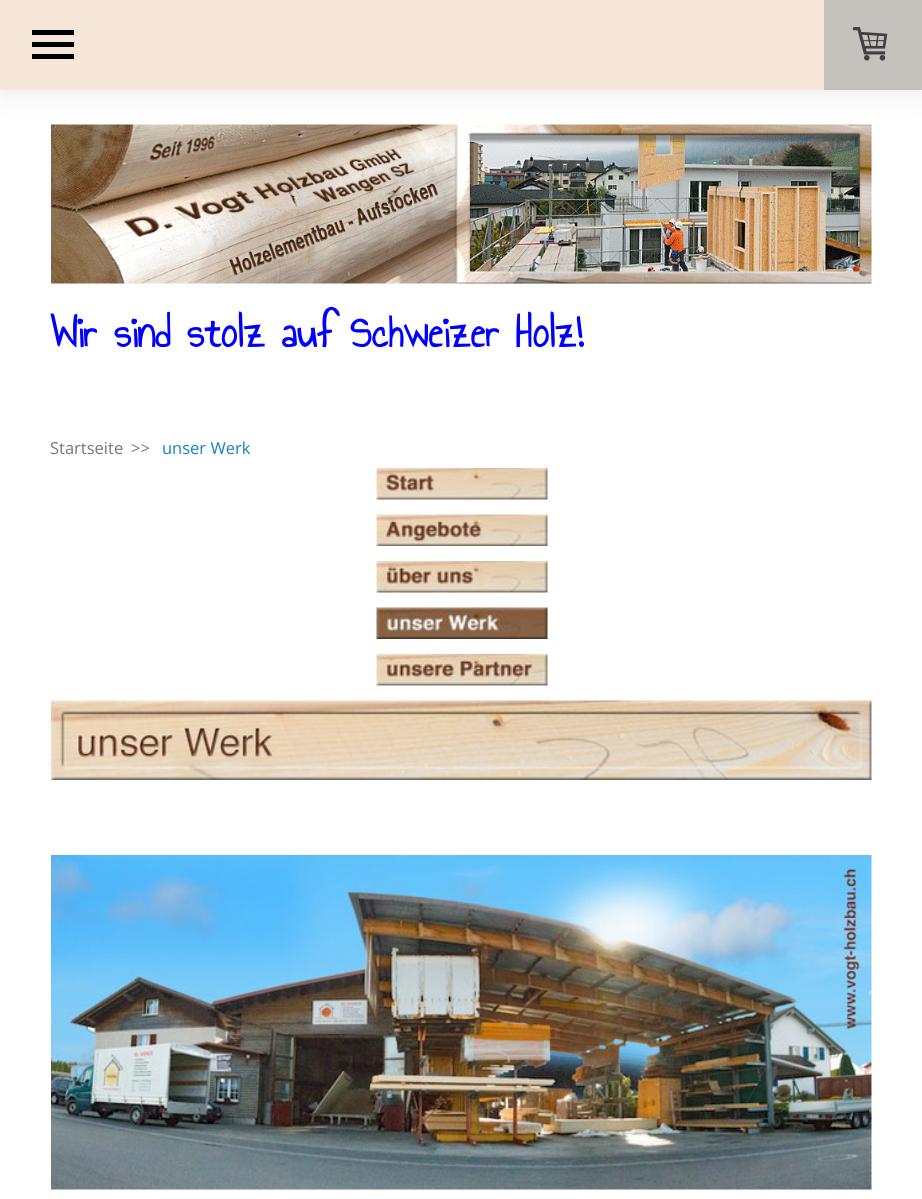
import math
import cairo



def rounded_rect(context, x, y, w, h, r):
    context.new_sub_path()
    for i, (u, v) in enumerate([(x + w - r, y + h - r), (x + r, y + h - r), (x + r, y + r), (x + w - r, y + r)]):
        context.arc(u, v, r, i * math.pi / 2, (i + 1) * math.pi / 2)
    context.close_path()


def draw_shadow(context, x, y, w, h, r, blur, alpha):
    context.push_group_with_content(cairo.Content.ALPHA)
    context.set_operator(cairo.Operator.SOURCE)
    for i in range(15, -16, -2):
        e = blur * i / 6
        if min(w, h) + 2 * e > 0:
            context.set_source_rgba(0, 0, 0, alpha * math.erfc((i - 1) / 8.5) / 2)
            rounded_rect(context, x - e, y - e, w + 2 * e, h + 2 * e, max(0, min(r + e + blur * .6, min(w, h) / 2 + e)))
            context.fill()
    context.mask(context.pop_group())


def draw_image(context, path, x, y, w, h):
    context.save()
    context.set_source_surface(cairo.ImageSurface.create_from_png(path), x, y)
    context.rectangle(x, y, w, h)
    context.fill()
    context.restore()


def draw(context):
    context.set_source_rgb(1, 1, 1)
    context.paint()
    draw_image(context, "images/2.png", 51, 124, 821, 160)
    context.set_source_rgb(0, 0, 0)
    draw_shadow(context, 0, 0, 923, 90, 0, 15, 0.1)
    context.set_source_rgb(246 / 255, 230 / 255, 215 / 255)
    context.rectangle(0, 0, 824, 90)
    context.fill()
    context.set_source_rgb(0, 0, 0)
    context.rectangle(32, 42, 42, 5)
    context.fill()
    context.rectangle(32, 30, 42, 5)
    context.fill()
    context.rectangle(32, 54, 42, 5)
    context.fill()
    context.set_source_rgb(197 / 255, 193 / 255, 189 / 255)
    context.rectangle(824, 0, 98, 90)
    context.fill()
    draw_image(context, "images/1.png", 852, 27, 36, 34)
    draw_image(context, "images/3.png", 376, 468, 172, 32)
    draw_image(context, "images/4.png", 376, 514, 172, 32)
    draw_image(context, "images/5.png", 376, 561, 172, 32)
    draw_image(context, "images/6.png", 376, 607, 172, 32)
    draw_image(context, "images/7.png", 376, 654, 172, 32)
    draw_image(context, "images/8.png", 51, 700, 821, 80)
    draw_image(context, "images/9.png", 51, 855, 821, 335)
    context.select_font_face("Annie Use Your Telescope", cairo.FontSlant.NORMAL, cairo.FontWeight.BOLD)
    context.set_font_size(45)
    context.set_source_rgb(0, 0, 1)
    context.move_to(50, 347)
    context.show_text("Wir sind stolz auf Schweizer Holz!")
    context.select_font_face("Open Sans")
    context.set_font_size(16.5)
    context.set_source_rgb(117 / 255, 117 / 255, 117 / 255)
    context.move_to(50, 454)
    context.show_text("Startseite")
    context.move_to(131, 454)
    context.show_text(">>")
    context.set_source_rgb(19 / 255, 130 / 255, 185 / 255)
    context.move_to(162, 454)
    context.show_text("unser Werk")


surface = cairo.ImageSurface(cairo.Format.RGB24, 922, 1199)
context = cairo.Context(surface)
options = cairo.FontOptions()
options.set_hint_metrics(cairo.HintMetrics.OFF)
options.set_hint_style(cairo.HintStyle.NONE)
context.set_font_options(options)
context.set_miter_limit(4)
draw(context)
surface.write_to_png("out.png")
